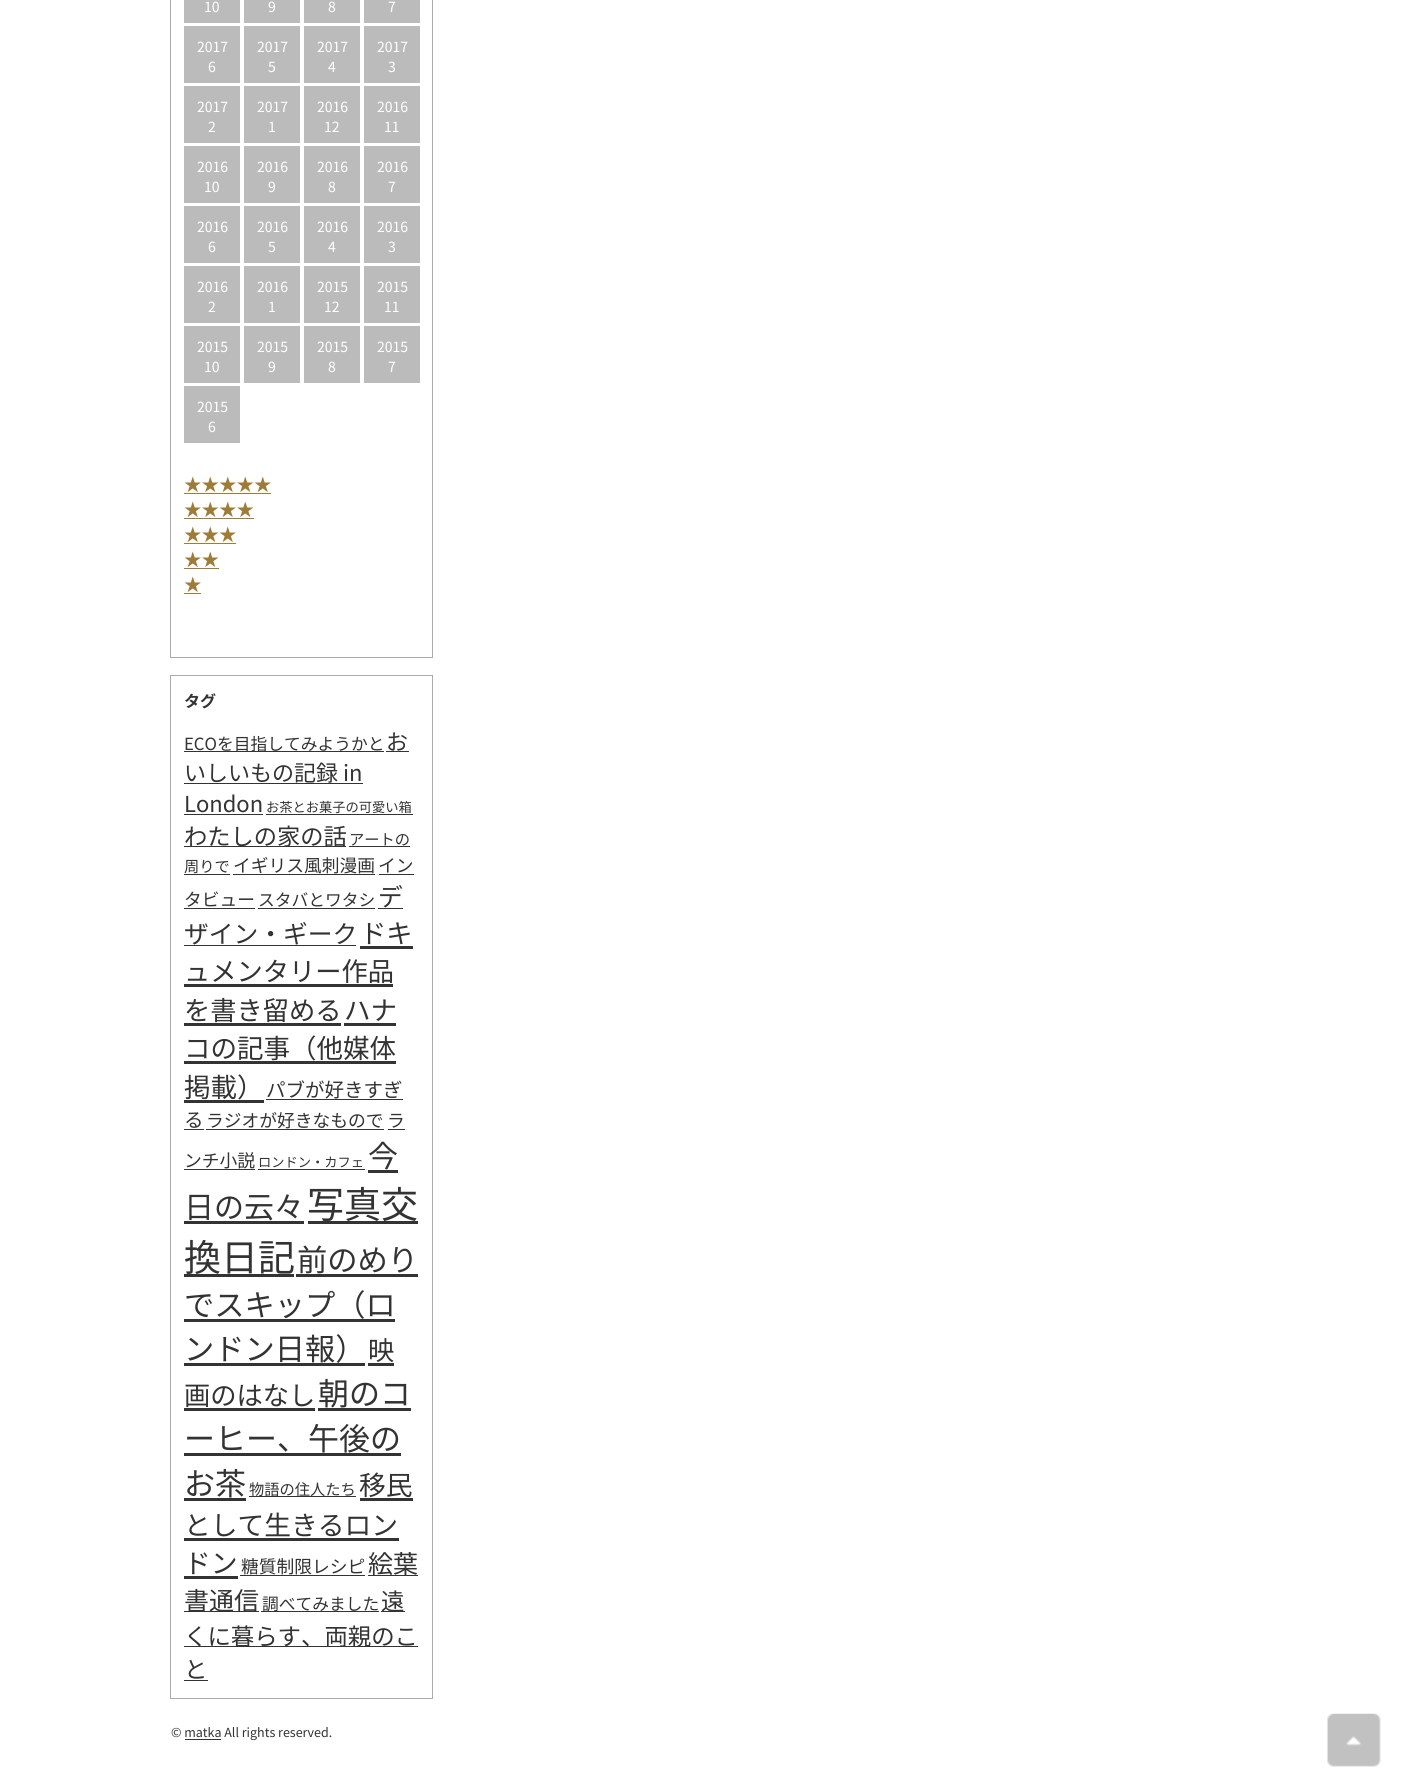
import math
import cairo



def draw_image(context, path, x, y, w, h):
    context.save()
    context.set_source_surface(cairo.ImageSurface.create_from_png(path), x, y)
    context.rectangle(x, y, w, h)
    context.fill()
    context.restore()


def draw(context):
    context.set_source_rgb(1, 1, 1)
    context.paint()
    context.rectangle(170.5, -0.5, 262, 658)
    context.set_source_rgb(170 / 255, 170 / 255, 170 / 255)
    context.set_line_width(1)
    context.stroke()
    context.set_source_rgb(187 / 255, 187 / 255, 187 / 255)
    context.rectangle(184, 0, 56, 23)
    context.fill()
    context.rectangle(244, 0, 56, 23)
    context.fill()
    context.rectangle(304, 0, 56, 23)
    context.fill()
    context.rectangle(364, 0, 56, 23)
    context.fill()
    context.rectangle(184, 26, 56, 57)
    context.fill()
    context.rectangle(244, 26, 56, 57)
    context.fill()
    context.rectangle(304, 26, 56, 57)
    context.fill()
    context.rectangle(364, 26, 56, 57)
    context.fill()
    context.rectangle(184, 86, 56, 57)
    context.fill()
    context.rectangle(244, 86, 56, 57)
    context.fill()
    context.rectangle(304, 86, 56, 57)
    context.fill()
    context.rectangle(364, 86, 56, 57)
    context.fill()
    context.rectangle(184, 146, 56, 57)
    context.fill()
    context.rectangle(244, 146, 56, 57)
    context.fill()
    context.rectangle(304, 146, 56, 57)
    context.fill()
    context.rectangle(364, 146, 56, 57)
    context.fill()
    context.rectangle(184, 206, 56, 57)
    context.fill()
    context.rectangle(244, 206, 56, 57)
    context.fill()
    context.rectangle(304, 206, 56, 57)
    context.fill()
    context.rectangle(364, 206, 56, 57)
    context.fill()
    context.rectangle(184, 266, 56, 57)
    context.fill()
    context.rectangle(244, 266, 56, 57)
    context.fill()
    context.rectangle(304, 266, 56, 57)
    context.fill()
    context.rectangle(364, 266, 56, 57)
    context.fill()
    context.rectangle(184, 326, 56, 57)
    context.fill()
    context.rectangle(244, 326, 56, 57)
    context.fill()
    context.rectangle(304, 326, 56, 57)
    context.fill()
    context.rectangle(364, 326, 56, 57)
    context.fill()
    context.rectangle(184, 386, 56, 57)
    context.fill()
    context.set_source_rgb(158 / 255, 124 / 255, 56 / 255)
    context.rectangle(184, 493, 87, 1)
    context.fill()
    context.rectangle(184, 518, 70, 1)
    context.fill()
    context.rectangle(184, 543, 52, 1)
    context.fill()
    context.rectangle(184, 568, 35, 1)
    context.fill()
    context.rectangle(184, 593, 17, 1)
    context.fill()
    context.rectangle(170.5, 675.5, 262, 1023)
    context.set_source_rgb(170 / 255, 170 / 255, 170 / 255)
    context.stroke()
    context.set_source_rgb(51 / 255, 51 / 255, 51 / 255)
    context.rectangle(184, 751, 200, 1)
    context.fill()
    context.rectangle(386, 751, 23, 1)
    context.fill()
    context.rectangle(184, 783, 179, 1)
    context.fill()
    context.rectangle(184, 814, 79, 1)
    context.fill()
    context.rectangle(266, 814, 147, 1)
    context.fill()
    context.rectangle(184, 846, 162, 1)
    context.fill()
    context.rectangle(349, 846, 61, 1)
    context.fill()
    context.rectangle(184, 874, 46, 1)
    context.fill()
    context.rectangle(233, 874, 142, 1)
    context.fill()
    context.rectangle(379, 874, 35, 1)
    context.fill()
    context.rectangle(184, 908, 71, 1)
    context.fill()
    context.rectangle(258, 908, 117, 1)
    context.fill()
    context.rectangle(378, 908, 25, 1)
    context.fill()
    context.rectangle(184, 945, 172, 1)
    context.fill()
    context.rectangle(360, 946, 53, 3)
    context.fill()
    context.rectangle(184, 984, 209, 3)
    context.fill()
    context.rectangle(184, 1023, 157, 3)
    context.fill()
    context.rectangle(344, 1023, 52, 3)
    context.fill()
    context.rectangle(184, 1061, 212, 3)
    context.fill()
    context.rectangle(184, 1100, 80, 3)
    context.fill()
    context.rectangle(266, 1099, 137, 1)
    context.fill()
    context.rectangle(184, 1129, 20, 1)
    context.fill()
    context.rectangle(206, 1129, 178, 1)
    context.fill()
    context.rectangle(388, 1129, 17, 1)
    context.fill()
    context.rectangle(184, 1169, 71, 1)
    context.fill()
    context.rectangle(258, 1169, 107, 1)
    context.fill()
    context.rectangle(368, 1170, 30, 3)
    context.fill()
    context.rectangle(184, 1221, 120, 3)
    context.fill()
    context.rectangle(308, 1221, 110, 3)
    context.fill()
    context.rectangle(184, 1274, 110, 3)
    context.fill()
    context.rectangle(296, 1274, 122, 3)
    context.fill()
    context.rectangle(184, 1319, 211, 3)
    context.fill()
    context.rectangle(184, 1363, 181, 3)
    context.fill()
    context.rectangle(368, 1363, 26, 3)
    context.fill()
    context.rectangle(184, 1408, 131, 3)
    context.fill()
    context.rectangle(318, 1408, 93, 3)
    context.fill()
    context.rectangle(184, 1453, 217, 3)
    context.fill()
    context.rectangle(184, 1498, 62, 3)
    context.fill()
    context.rectangle(249, 1496, 107, 1)
    context.fill()
    context.rectangle(360, 1498, 53, 3)
    context.fill()
    context.rectangle(184, 1538, 215, 3)
    context.fill()
    context.rectangle(184, 1576, 54, 3)
    context.fill()
    context.rectangle(240, 1575, 125, 1)
    context.fill()
    context.rectangle(368, 1575, 50, 1)
    context.fill()
    context.rectangle(184, 1611, 75, 1)
    context.fill()
    context.rectangle(261, 1611, 118, 1)
    context.fill()
    context.rectangle(381, 1611, 24, 1)
    context.fill()
    context.rectangle(184, 1646, 234, 1)
    context.fill()
    context.rectangle(184, 1680, 24, 1)
    context.fill()
    context.rectangle(185, 1739, 36, 1)
    context.fill()
    draw_image(context, "images/1.png", 1327, 1713, 54, 54)
    context.select_font_face("Noto Sans JP")
    context.set_font_size(14)
    context.set_source_rgb(1, 1, 1)
    context.move_to(204, 12)
    context.show_text("10")
    context.move_to(268, 12)
    context.show_text("9")
    context.move_to(328, 12)
    context.show_text("8")
    context.move_to(388, 12)
    context.show_text("7")
    context.move_to(197, 52)
    context.show_text("2017")
    context.move_to(208, 72)
    context.show_text("6")
    context.move_to(257, 52)
    context.show_text("2017")
    context.move_to(268, 72)
    context.show_text("5")
    context.move_to(317, 52)
    context.show_text("2017")
    context.move_to(328, 72)
    context.show_text("4")
    context.move_to(377, 52)
    context.show_text("2017")
    context.move_to(388, 72)
    context.show_text("3")
    context.move_to(197, 112)
    context.show_text("2017")
    context.move_to(208, 132)
    context.show_text("2")
    context.move_to(257, 112)
    context.show_text("2017")
    context.move_to(268, 132)
    context.show_text("1")
    context.move_to(317, 112)
    context.show_text("2016")
    context.move_to(324, 132)
    context.show_text("12")
    context.move_to(377, 112)
    context.show_text("2016")
    context.move_to(384, 132)
    context.show_text("11")
    context.move_to(197, 172)
    context.show_text("2016")
    context.move_to(204, 192)
    context.show_text("10")
    context.move_to(257, 172)
    context.show_text("2016")
    context.move_to(268, 192)
    context.show_text("9")
    context.move_to(317, 172)
    context.show_text("2016")
    context.move_to(328, 192)
    context.show_text("8")
    context.move_to(377, 172)
    context.show_text("2016")
    context.move_to(388, 192)
    context.show_text("7")
    context.move_to(197, 232)
    context.show_text("2016")
    context.move_to(208, 252)
    context.show_text("6")
    context.move_to(257, 232)
    context.show_text("2016")
    context.move_to(268, 252)
    context.show_text("5")
    context.move_to(317, 232)
    context.show_text("2016")
    context.move_to(328, 252)
    context.show_text("4")
    context.move_to(377, 232)
    context.show_text("2016")
    context.move_to(388, 252)
    context.show_text("3")
    context.move_to(197, 292)
    context.show_text("2016")
    context.move_to(208, 312)
    context.show_text("2")
    context.move_to(257, 292)
    context.show_text("2016")
    context.move_to(268, 312)
    context.show_text("1")
    context.move_to(317, 292)
    context.show_text("2015")
    context.move_to(324, 312)
    context.show_text("12")
    context.move_to(377, 292)
    context.show_text("2015")
    context.move_to(384, 312)
    context.show_text("11")
    context.move_to(197, 352)
    context.show_text("2015")
    context.move_to(204, 372)
    context.show_text("10")
    context.move_to(257, 352)
    context.show_text("2015")
    context.move_to(268, 372)
    context.show_text("9")
    context.move_to(317, 352)
    context.show_text("2015")
    context.move_to(328, 372)
    context.show_text("8")
    context.move_to(377, 352)
    context.show_text("2015")
    context.move_to(388, 372)
    context.show_text("7")
    context.move_to(197, 412)
    context.show_text("2015")
    context.move_to(208, 432)
    context.show_text("6")
    context.set_font_size(17.5)
    context.set_source_rgb(158 / 255, 124 / 255, 56 / 255)
    context.move_to(184, 491)
    context.show_text("★★★★★")
    context.move_to(184, 516)
    context.show_text("★★★★")
    context.move_to(184, 541)
    context.show_text("★★★")
    context.move_to(184, 566)
    context.show_text("★★")
    context.move_to(184, 591)
    context.show_text("★")
    context.select_font_face("Noto Sans JP", cairo.FontSlant.NORMAL, cairo.FontWeight.BOLD)
    context.set_font_size(16)
    context.set_source_rgb(51 / 255, 51 / 255, 51 / 255)
    context.move_to(184, 707)
    context.show_text("タグ")
    context.select_font_face("Noto Sans JP")
    context.set_font_size(16.75)
    context.move_to(184, 750)
    context.show_text("ECOを目指してみようかと")
    context.set_font_size(22)
    context.move_to(386, 750)
    context.show_text("お")
    context.move_to(184, 781)
    context.show_text("いしいもの記録 in")
    context.move_to(184, 812)
    context.show_text("London")
    context.set_font_size(13.25)
    context.move_to(266, 812)
    context.show_text("お茶とお菓子の可愛い箱")
    context.set_font_size(23.25)
    context.move_to(184, 845)
    context.show_text("わたしの家の話")
    context.set_font_size(15.25)
    context.move_to(349, 845)
    context.show_text("アートの")
    context.move_to(184, 872)
    context.show_text("周りで")
    context.set_font_size(17.75)
    context.move_to(233, 872)
    context.show_text("イギリス風刺漫画")
    context.move_to(378, 872)
    context.show_text("イン")
    context.move_to(184, 906)
    context.show_text("タビュー")
    context.set_font_size(16.75)
    context.move_to(258, 906)
    context.show_text("スタバとワタシ")
    context.set_font_size(24.75)
    context.move_to(378, 906)
    context.show_text("デ")
    context.move_to(184, 943)
    context.show_text("ザイン・ギーク")
    context.set_font_size(26.25)
    context.move_to(360, 943)
    context.show_text("ドキ")
    context.move_to(184, 981)
    context.show_text("ュメンタリー作品")
    context.move_to(184, 1020)
    context.show_text("を書き留める")
    context.set_font_size(26.5)
    context.move_to(344, 1020)
    context.show_text("ハナ")
    context.move_to(184, 1058)
    context.show_text("コの記事（他媒体")
    context.move_to(184, 1097)
    context.show_text("掲載）")
    context.set_font_size(19.5)
    context.move_to(266, 1097)
    context.show_text("パブが好きすぎ")
    context.move_to(184, 1127)
    context.show_text("る")
    context.set_font_size(17.75)
    context.move_to(206, 1127)
    context.show_text("ラジオが好きなもので")
    context.move_to(387, 1127)
    context.show_text("ラ")
    context.move_to(184, 1167)
    context.show_text("ンチ小説")
    context.set_font_size(13.25)
    context.move_to(258, 1167)
    context.show_text("ロンドン・カフェ")
    context.set_font_size(30)
    context.move_to(368, 1167)
    context.show_text("今")
    context.move_to(184, 1218)
    context.show_text("日の云々")
    context.set_font_size(37)
    context.move_to(307, 1218)
    context.show_text("写真交")
    context.move_to(184, 1271)
    context.show_text("換日記")
    context.set_font_size(30.25)
    context.move_to(297, 1271)
    context.show_text("前のめり")
    context.move_to(184, 1316)
    context.show_text("でスキップ（ロ")
    context.move_to(184, 1360)
    context.show_text("ンドン日報）")
    context.set_font_size(26.25)
    context.move_to(368, 1360)
    context.show_text("映")
    context.move_to(184, 1405)
    context.show_text("画のはなし")
    context.set_font_size(31)
    context.move_to(318, 1405)
    context.show_text("朝のコ")
    context.move_to(184, 1450)
    context.show_text("ーヒー、午後の")
    context.move_to(184, 1495)
    context.show_text("お茶")
    context.set_font_size(15.25)
    context.move_to(249, 1495)
    context.show_text("物語の住人たち")
    context.set_font_size(26.75)
    context.move_to(359, 1495)
    context.show_text("移民")
    context.move_to(184, 1535)
    context.show_text("として生きるロン")
    context.move_to(184, 1573)
    context.show_text("ドン")
    context.set_font_size(17.75)
    context.move_to(241, 1573)
    context.show_text("糖質制限レシピ")
    context.set_font_size(25)
    context.move_to(368, 1573)
    context.show_text("絵葉")
    context.move_to(184, 1610)
    context.show_text("書通信")
    context.set_font_size(16.75)
    context.move_to(262, 1610)
    context.show_text("調べてみました")
    context.set_font_size(23.4)
    context.move_to(381, 1610)
    context.show_text("遠")
    context.move_to(184, 1645)
    context.show_text("くに暮らす、両親のこ")
    context.move_to(184, 1678)
    context.show_text("と")
    context.set_font_size(12.5)
    context.move_to(171, 1737)
    context.show_text("© matka All rights reserved.")


surface = cairo.ImageSurface(cairo.Format.RGB24, 1404, 1791)
context = cairo.Context(surface)
options = cairo.FontOptions()
options.set_hint_metrics(cairo.HintMetrics.OFF)
options.set_hint_style(cairo.HintStyle.NONE)
context.set_font_options(options)
context.set_miter_limit(4)
draw(context)
surface.write_to_png("out.png")
